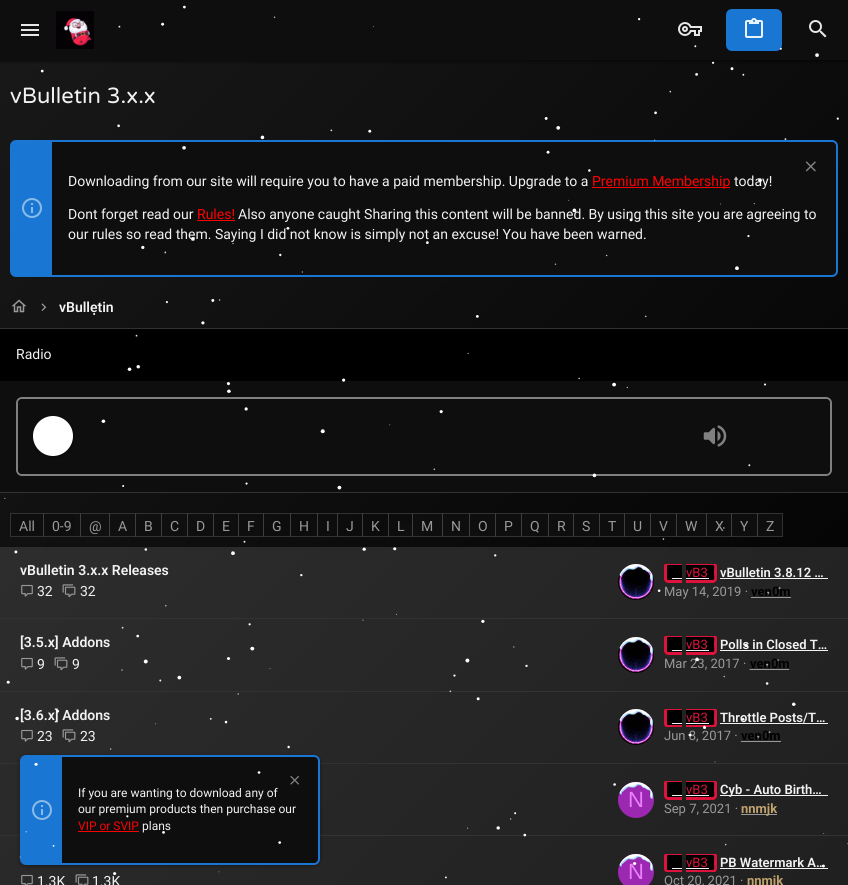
import math
import cairo



def rounded_rect(context, x, y, w, h, r):
    context.new_sub_path()
    for i, (u, v) in enumerate([(x + w - r, y + h - r), (x + r, y + h - r), (x + r, y + r), (x + w - r, y + r)]):
        context.arc(u, v, r, i * math.pi / 2, (i + 1) * math.pi / 2)
    context.close_path()


def draw_shadow(context, x, y, w, h, r, blur, alpha):
    context.push_group_with_content(cairo.Content.ALPHA)
    context.set_operator(cairo.Operator.SOURCE)
    for i in range(15, -16, -2):
        e = blur * i / 6
        if min(w, h) + 2 * e > 0:
            context.set_source_rgba(0, 0, 0, alpha * math.erfc((i - 1) / 8.5) / 2)
            rounded_rect(context, x - e, y - e, w + 2 * e, h + 2 * e, max(0, min(r + e + blur * .6, min(w, h) / 2 + e)))
            context.fill()
    context.mask(context.pop_group())


def draw_image(context, path, x, y, w, h):
    context.save()
    context.set_source_surface(cairo.ImageSurface.create_from_png(path), x, y)
    context.rectangle(x, y, w, h)
    context.fill()
    context.restore()


def draw(context):
    context.set_source_rgb(1, 1, 1)
    context.paint()
    gradient = cairo.LinearGradient(-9, 9, 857, 876)
    gradient.add_color_stop_rgba(0, 25 / 255, 25 / 255, 25 / 255, 1)
    gradient.add_color_stop_rgba(1, 0, 0, 0, 1)
    context.set_source(gradient)
    context.rectangle(0, 60, 848, 487)
    context.fill()
    context.set_source_rgb(0, 0, 0)
    draw_shadow(context, 0, 1, 848, 60, 0, 2, 0.4)
    draw_shadow(context, 0, 2, 848, 60, 0, 1.5, 0.26)
    context.set_source_rgb(14 / 255, 14 / 255, 14 / 255)
    context.rectangle(0, 0, 848, 60)
    context.fill()
    draw_image(context, "images/2.png", 21, 24, 18, 12)
    draw_image(context, "images/3.png", 56, 11, 38, 38)
    draw_image(context, "images/4.png", 678, 22, 24, 14)
    context.set_source_rgb(25 / 255, 118 / 255, 210 / 255)
    rounded_rect(context, 726, 9, 56, 42, 6)
    context.fill()
    draw_image(context, "images/5.png", 745, 18, 18, 20)
    draw_image(context, "images/6.png", 809, 20, 18, 18)
    context.set_source_rgb(14 / 255, 14 / 255, 14 / 255)
    rounded_rect(context, 11, 141, 826, 135, 5)
    context.fill_preserve()
    context.set_source_rgb(25 / 255, 118 / 255, 210 / 255)
    context.stroke()
    context.rectangle(12, 142, 40, 133)
    context.fill()
    draw_image(context, "images/7.png", 22, 198, 20, 20)
    draw_image(context, "images/8.png", 805, 161, 11, 11)
    context.set_source_rgb(1, 0, 0)
    context.rectangle(592, 187, 138, 1)
    context.fill()
    context.rectangle(197, 220, 38, 1)
    context.fill()
    draw_image(context, "images/9.png", 11, 299, 16, 14)
    draw_image(context, "images/10.png", 41, 303, 6, 8)
    context.set_source_rgb(14 / 255, 14 / 255, 14 / 255)
    context.rectangle(0, 381, 848, 111)
    context.fill()
    context.set_source_rgb(50 / 255, 50 / 255, 50 / 255)
    context.rectangle(0, 328, 848, 1)
    context.fill()
    context.rectangle(0, 492, 848, 1)
    context.fill()
    context.set_source_rgb(0, 0, 0)
    context.rectangle(0, 329, 848, 52)
    context.fill()
    rounded_rect(context, 17, 398, 814, 77, 5)
    context.set_source_rgb(129 / 255, 127 / 255, 128 / 255)
    context.stroke()
    context.set_source_rgb(14 / 255, 14 / 255, 14 / 255)
    rounded_rect(context, 18, 399, 812, 75, 4)
    context.fill()
    context.set_source_rgb(0, 0, 0)
    draw_shadow(context, 37, 421, 34, 34, 17, 3, 1)
    context.set_source_rgb(1, 1, 1)
    context.arc(53, 436, 20, 0, 2 * math.pi)
    context.fill()
    draw_image(context, "images/11.png", 703, 425, 24, 22)
    context.set_source_rgb(14 / 255, 14 / 255, 14 / 255)
    context.rectangle(11, 514, 32, 22)
    context.fill()
    context.set_source_rgb(50 / 255, 50 / 255, 50 / 255)
    context.rectangle(10, 513, 773, 1)
    context.fill()
    context.rectangle(10, 536, 747, 1)
    context.fill()
    context.rectangle(10, 513, 1, 24)
    context.fill()
    context.set_source_rgb(14 / 255, 14 / 255, 14 / 255)
    context.rectangle(44, 514, 31, 22)
    context.fill()
    context.set_source_rgb(62 / 255, 62 / 255, 62 / 255)
    context.rectangle(43, 513, 1, 24)
    context.fill()
    context.rectangle(80, 513, 1, 24)
    context.fill()
    context.rectangle(109, 513, 1, 24)
    context.fill()
    context.rectangle(135, 513, 1, 24)
    context.fill()
    context.rectangle(161, 513, 1, 24)
    context.fill()
    context.rectangle(187, 513, 1, 24)
    context.fill()
    context.rectangle(213, 513, 1, 24)
    context.fill()
    context.rectangle(238, 513, 1, 24)
    context.fill()
    context.rectangle(263, 513, 1, 24)
    context.fill()
    context.rectangle(290, 513, 1, 24)
    context.fill()
    context.rectangle(317, 513, 1, 24)
    context.fill()
    context.rectangle(337, 513, 1, 24)
    context.fill()
    context.rectangle(362, 513, 1, 24)
    context.fill()
    context.set_source_rgb(14 / 255, 14 / 255, 14 / 255)
    context.rectangle(400, 524, 12, 12)
    context.fill()
    context.set_source_rgb(62 / 255, 62 / 255, 62 / 255)
    context.rectangle(388, 513, 1, 24)
    context.fill()
    context.set_source_rgb(14 / 255, 14 / 255, 14 / 255)
    context.rectangle(413, 514, 29, 22)
    context.fill()
    context.set_source_rgb(62 / 255, 62 / 255, 62 / 255)
    context.rectangle(412, 513, 1, 24)
    context.fill()
    context.set_source_rgb(14 / 255, 14 / 255, 14 / 255)
    context.rectangle(443, 514, 26, 22)
    context.fill()
    context.set_source_rgb(62 / 255, 62 / 255, 62 / 255)
    context.rectangle(442, 513, 1, 24)
    context.fill()
    context.set_source_rgb(14 / 255, 14 / 255, 14 / 255)
    context.rectangle(470, 514, 25, 22)
    context.fill()
    context.set_source_rgb(62 / 255, 62 / 255, 62 / 255)
    context.rectangle(469, 513, 1, 24)
    context.fill()
    context.set_source_rgb(14 / 255, 14 / 255, 14 / 255)
    context.rectangle(496, 514, 25, 22)
    context.fill()
    context.set_source_rgb(62 / 255, 62 / 255, 62 / 255)
    context.rectangle(495, 513, 1, 24)
    context.fill()
    context.set_source_rgb(14 / 255, 14 / 255, 14 / 255)
    context.rectangle(522, 514, 26, 22)
    context.fill()
    context.set_source_rgb(62 / 255, 62 / 255, 62 / 255)
    context.rectangle(521, 513, 1, 24)
    context.fill()
    context.set_source_rgb(14 / 255, 14 / 255, 14 / 255)
    context.rectangle(549, 514, 24, 22)
    context.fill()
    context.set_source_rgb(62 / 255, 62 / 255, 62 / 255)
    context.rectangle(548, 513, 1, 24)
    context.fill()
    context.set_source_rgb(14 / 255, 14 / 255, 14 / 255)
    context.rectangle(574, 514, 25, 22)
    context.fill()
    context.set_source_rgb(62 / 255, 62 / 255, 62 / 255)
    context.rectangle(573, 513, 1, 24)
    context.fill()
    context.set_source_rgb(14 / 255, 14 / 255, 14 / 255)
    context.rectangle(600, 514, 24, 22)
    context.fill()
    context.set_source_rgb(62 / 255, 62 / 255, 62 / 255)
    context.rectangle(599, 513, 1, 24)
    context.fill()
    context.set_source_rgb(14 / 255, 14 / 255, 14 / 255)
    context.rectangle(625, 514, 25, 22)
    context.fill()
    context.set_source_rgb(62 / 255, 62 / 255, 62 / 255)
    context.rectangle(624, 513, 1, 24)
    context.fill()
    context.set_source_rgb(14 / 255, 14 / 255, 14 / 255)
    context.rectangle(651, 514, 25, 22)
    context.fill()
    context.set_source_rgb(62 / 255, 62 / 255, 62 / 255)
    context.rectangle(650, 513, 1, 24)
    context.fill()
    context.set_source_rgb(14 / 255, 14 / 255, 14 / 255)
    context.rectangle(677, 514, 29, 22)
    context.fill()
    context.set_source_rgb(62 / 255, 62 / 255, 62 / 255)
    context.rectangle(676, 513, 1, 24)
    context.fill()
    context.set_source_rgb(14 / 255, 14 / 255, 14 / 255)
    context.rectangle(707, 514, 24, 22)
    context.fill()
    context.set_source_rgb(62 / 255, 62 / 255, 62 / 255)
    context.rectangle(706, 513, 1, 24)
    context.fill()
    context.set_source_rgb(14 / 255, 14 / 255, 14 / 255)
    context.rectangle(732, 514, 25, 22)
    context.fill()
    context.set_source_rgb(62 / 255, 62 / 255, 62 / 255)
    context.rectangle(731, 513, 1, 24)
    context.fill()
    context.set_source_rgb(14 / 255, 14 / 255, 14 / 255)
    context.rectangle(758, 514, 24, 22)
    context.fill()
    context.set_source_rgb(50 / 255, 50 / 255, 50 / 255)
    context.rectangle(782, 513, 1, 24)
    context.fill()
    context.rectangle(757, 536, 26, 1)
    context.fill()
    context.set_source_rgb(62 / 255, 62 / 255, 62 / 255)
    context.rectangle(757, 513, 1, 24)
    context.fill()
    gradient = cairo.LinearGradient(-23, 570, 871, 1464)
    gradient.add_color_stop_rgba(0, 45 / 255, 45 / 255, 45 / 255, 1)
    gradient.add_color_stop_rgba(1, 25 / 255, 25 / 255, 25 / 255, 1)
    context.set_source(gradient)
    context.rectangle(0, 547, 848, 338)
    context.fill()
    draw_image(context, "images/12.png", 21, 584, 12, 13)
    draw_image(context, "images/13.png", 62, 584, 14, 14)
    context.set_source_rgb(14 / 255, 14 / 255, 14 / 255)
    context.arc(636, 582, 18, 0, 2 * math.pi)
    context.fill()
    draw_image(context, "images/14.png", 618, 564, 36, 36)
    draw_image(context, "images/15.png", 619, 564, 35, 17)
    context.save()
    context.rectangle(664, 564, 164, 19)
    context.clip()
    context.set_source_rgb(0, 0, 0)
    context.new_path()
    context.move_to(668, 562)
    context.line_to(682, 562)
    context.line_to(682, 583)
    context.line_to(668, 583)
    context.curve_to(666, 583, 664, 581, 664, 579)
    context.line_to(664, 566)
    context.curve_to(664, 564, 666, 562, 668, 562)
    context.close_path()
    context.fill()
    context.set_source_rgb(220 / 255, 20 / 255, 60 / 255)
    context.set_fill_rule(cairo.FillRule.EVEN_ODD)
    context.new_path()
    context.move_to(668, 562)
    context.line_to(682, 562)
    context.line_to(682, 583)
    context.line_to(668, 583)
    context.curve_to(666, 583, 664, 581, 664, 579)
    context.line_to(664, 566)
    context.curve_to(664, 564, 666, 562, 668, 562)
    context.close_path()
    context.move_to(668, 565)
    context.line_to(682, 565)
    context.line_to(682, 580)
    context.line_to(668, 580)
    context.curve_to(667.5, 580, 667, 579.5, 667, 579)
    context.line_to(667, 566)
    context.curve_to(667, 565.5, 667.5, 565, 668, 565)
    context.close_path()
    context.fill()
    context.set_source_rgb(0, 0, 0)
    context.new_path()
    context.move_to(686, 562)
    context.line_to(713, 562)
    context.curve_to(715, 562, 717, 564, 717, 566)
    context.line_to(717, 579)
    context.curve_to(717, 581, 715, 583, 713, 583)
    context.line_to(686, 583)
    context.close_path()
    context.fill()
    context.set_source_rgb(220 / 255, 20 / 255, 60 / 255)
    context.new_path()
    context.move_to(686, 562)
    context.line_to(713, 562)
    context.curve_to(715, 562, 717, 564, 717, 566)
    context.line_to(717, 579)
    context.curve_to(717, 581, 715, 583, 713, 583)
    context.line_to(686, 583)
    context.close_path()
    context.move_to(686, 565)
    context.line_to(708.5, 565)
    context.curve_to(716, 565, 714, 564.5, 714, 572.5)
    context.curve_to(714, 580.5, 716, 580, 708.5, 580)
    context.line_to(686, 580)
    context.close_path()
    context.fill()
    context.restore()
    context.set_source_rgb(242 / 255, 242 / 255, 242 / 255)
    context.rectangle(672, 578, 10, 1)
    context.fill()
    context.rectangle(686, 578, 23, 1)
    context.fill()
    context.rectangle(720, 578, 108, 1)
    context.fill()
    context.set_source_rgb(153 / 255, 153 / 255, 153 / 255)
    context.rectangle(751, 597, 40, 1)
    context.fill()
    draw_image(context, "images/16.png", 767, 587, 14, 7)
    context.set_source_rgb(50 / 255, 50 / 255, 50 / 255)
    context.rectangle(0, 618, 848, 1)
    context.fill()
    draw_image(context, "images/17.png", 21, 657, 12, 13)
    draw_image(context, "images/18.png", 54, 657, 14, 14)
    context.set_source_rgb(14 / 255, 14 / 255, 14 / 255)
    context.arc(636, 655, 18, 0, 2 * math.pi)
    context.fill()
    draw_image(context, "images/19.png", 618, 637, 36, 36)
    draw_image(context, "images/20.png", 619, 637, 35, 17)
    context.save()
    context.rectangle(664, 636, 164, 19)
    context.clip()
    context.set_source_rgb(0, 0, 0)
    context.new_path()
    context.move_to(668, 634)
    context.line_to(682, 634)
    context.line_to(682, 655)
    context.line_to(668, 655)
    context.curve_to(666, 655, 664, 653, 664, 651)
    context.line_to(664, 638)
    context.curve_to(664, 636, 666, 634, 668, 634)
    context.close_path()
    context.fill()
    context.set_source_rgb(220 / 255, 20 / 255, 60 / 255)
    context.set_fill_rule(cairo.FillRule.EVEN_ODD)
    context.new_path()
    context.move_to(668, 634)
    context.line_to(682, 634)
    context.line_to(682, 655)
    context.line_to(668, 655)
    context.curve_to(666, 655, 664, 653, 664, 651)
    context.line_to(664, 638)
    context.curve_to(664, 636, 666, 634, 668, 634)
    context.close_path()
    context.move_to(668, 637)
    context.line_to(682, 637)
    context.line_to(682, 652)
    context.line_to(668, 652)
    context.curve_to(667.5, 652, 667, 651.5, 667, 651)
    context.line_to(667, 638)
    context.curve_to(667, 637.5, 667.5, 637, 668, 637)
    context.close_path()
    context.fill()
    context.set_source_rgb(0, 0, 0)
    context.new_path()
    context.move_to(686, 634)
    context.line_to(713, 634)
    context.curve_to(715, 634, 717, 636, 717, 638)
    context.line_to(717, 651)
    context.curve_to(717, 653, 715, 655, 713, 655)
    context.line_to(686, 655)
    context.close_path()
    context.fill()
    context.set_source_rgb(220 / 255, 20 / 255, 60 / 255)
    context.new_path()
    context.move_to(686, 634)
    context.line_to(713, 634)
    context.curve_to(715, 634, 717, 636, 717, 638)
    context.line_to(717, 651)
    context.curve_to(717, 653, 715, 655, 713, 655)
    context.line_to(686, 655)
    context.close_path()
    context.move_to(686, 637)
    context.line_to(708.5, 637)
    context.curve_to(716, 637, 714, 636.5, 714, 644.5)
    context.curve_to(714, 652.5, 716, 652, 708.5, 652)
    context.line_to(686, 652)
    context.close_path()
    context.fill()
    context.restore()
    context.set_source_rgb(242 / 255, 242 / 255, 242 / 255)
    context.rectangle(672, 650, 10, 1)
    context.fill()
    context.rectangle(686, 650, 23, 1)
    context.fill()
    context.rectangle(720, 650, 108, 1)
    context.fill()
    draw_image(context, "images/21.png", 749, 659, 41, 11)
    context.set_source_rgb(50 / 255, 50 / 255, 50 / 255)
    context.rectangle(0, 691, 848, 1)
    context.fill()
    draw_image(context, "images/22.png", 21, 729, 12, 13)
    draw_image(context, "images/23.png", 62, 729, 14, 14)
    context.set_source_rgb(14 / 255, 14 / 255, 14 / 255)
    context.arc(636, 727, 18, 0, 2 * math.pi)
    context.fill()
    draw_image(context, "images/24.png", 618, 709, 36, 36)
    draw_image(context, "images/25.png", 619, 709, 35, 17)
    context.save()
    context.rectangle(664, 709, 164, 18)
    context.clip()
    context.set_source_rgb(0, 0, 0)
    context.new_path()
    context.move_to(668, 707)
    context.line_to(682, 707)
    context.line_to(682, 728)
    context.line_to(668, 728)
    context.curve_to(666, 728, 664, 726, 664, 724)
    context.line_to(664, 711)
    context.curve_to(664, 709, 666, 707, 668, 707)
    context.close_path()
    context.fill()
    context.set_source_rgb(220 / 255, 20 / 255, 60 / 255)
    context.set_fill_rule(cairo.FillRule.EVEN_ODD)
    context.new_path()
    context.move_to(668, 707)
    context.line_to(682, 707)
    context.line_to(682, 728)
    context.line_to(668, 728)
    context.curve_to(666, 728, 664, 726, 664, 724)
    context.line_to(664, 711)
    context.curve_to(664, 709, 666, 707, 668, 707)
    context.close_path()
    context.move_to(668, 710)
    context.line_to(682, 710)
    context.line_to(682, 725)
    context.line_to(668, 725)
    context.curve_to(667.5, 725, 667, 724.5, 667, 724)
    context.line_to(667, 711)
    context.curve_to(667, 710.5, 667.5, 710, 668, 710)
    context.close_path()
    context.fill()
    context.set_source_rgb(0, 0, 0)
    context.new_path()
    context.move_to(686, 707)
    context.line_to(713, 707)
    context.curve_to(715, 707, 717, 709, 717, 711)
    context.line_to(717, 724)
    context.curve_to(717, 726, 715, 728, 713, 728)
    context.line_to(686, 728)
    context.close_path()
    context.fill()
    context.set_source_rgb(220 / 255, 20 / 255, 60 / 255)
    context.new_path()
    context.move_to(686, 707)
    context.line_to(713, 707)
    context.curve_to(715, 707, 717, 709, 717, 711)
    context.line_to(717, 724)
    context.curve_to(717, 726, 715, 728, 713, 728)
    context.line_to(686, 728)
    context.close_path()
    context.move_to(686, 710)
    context.line_to(708.5, 710)
    context.curve_to(716, 710, 714, 709.5, 714, 717.5)
    context.curve_to(714, 725.5, 716, 725, 708.5, 725)
    context.line_to(686, 725)
    context.close_path()
    context.fill()
    context.restore()
    context.set_source_rgb(242 / 255, 242 / 255, 242 / 255)
    context.rectangle(672, 723, 10, 1)
    context.fill()
    context.rectangle(686, 723, 23, 1)
    context.fill()
    context.rectangle(720, 723, 108, 1)
    context.fill()
    context.set_source_rgb(153 / 255, 153 / 255, 153 / 255)
    context.rectangle(771, 741, 10, 1)
    context.fill()
    draw_image(context, "images/26.png", 740, 731, 31, 11)
    context.set_source_rgb(50 / 255, 50 / 255, 50 / 255)
    context.rectangle(0, 763, 848, 1)
    context.fill()
    context.set_source_rgb(156 / 255, 39 / 255, 176 / 255)
    context.arc(636, 800, 18, 0, 2 * math.pi)
    context.fill()
    context.save()
    context.rectangle(664, 781, 164, 19)
    context.clip()
    context.set_source_rgb(0, 0, 0)
    context.new_path()
    context.move_to(668, 779)
    context.line_to(682, 779)
    context.line_to(682, 800)
    context.line_to(668, 800)
    context.curve_to(666, 800, 664, 798, 664, 796)
    context.line_to(664, 783)
    context.curve_to(664, 781, 666, 779, 668, 779)
    context.close_path()
    context.fill()
    context.set_source_rgb(220 / 255, 20 / 255, 60 / 255)
    context.set_fill_rule(cairo.FillRule.EVEN_ODD)
    context.new_path()
    context.move_to(668, 779)
    context.line_to(682, 779)
    context.line_to(682, 800)
    context.line_to(668, 800)
    context.curve_to(666, 800, 664, 798, 664, 796)
    context.line_to(664, 783)
    context.curve_to(664, 781, 666, 779, 668, 779)
    context.close_path()
    context.move_to(668, 782)
    context.line_to(682, 782)
    context.line_to(682, 797)
    context.line_to(668, 797)
    context.curve_to(667.5, 797, 667, 796.5, 667, 796)
    context.line_to(667, 783)
    context.curve_to(667, 782.5, 667.5, 782, 668, 782)
    context.close_path()
    context.fill()
    context.set_source_rgb(0, 0, 0)
    context.new_path()
    context.move_to(686, 779)
    context.line_to(713, 779)
    context.curve_to(715, 779, 717, 781, 717, 783)
    context.line_to(717, 796)
    context.curve_to(717, 798, 715, 800, 713, 800)
    context.line_to(686, 800)
    context.close_path()
    context.fill()
    context.set_source_rgb(220 / 255, 20 / 255, 60 / 255)
    context.new_path()
    context.move_to(686, 779)
    context.line_to(713, 779)
    context.curve_to(715, 779, 717, 781, 717, 783)
    context.line_to(717, 796)
    context.curve_to(717, 798, 715, 800, 713, 800)
    context.line_to(686, 800)
    context.close_path()
    context.move_to(686, 782)
    context.line_to(708.5, 782)
    context.curve_to(716, 782, 714, 781.5, 714, 789.5)
    context.curve_to(714, 797.5, 716, 797, 708.5, 797)
    context.line_to(686, 797)
    context.close_path()
    context.fill()
    context.restore()
    context.set_source_rgb(242 / 255, 242 / 255, 242 / 255)
    context.rectangle(672, 795, 10, 1)
    context.fill()
    context.rectangle(686, 795, 23, 1)
    context.fill()
    context.rectangle(720, 795, 108, 1)
    context.fill()
    context.set_source_rgb(153 / 255, 153 / 255, 153 / 255)
    context.rectangle(741, 814, 36, 1)
    context.fill()
    context.set_source_rgb(50 / 255, 50 / 255, 50 / 255)
    context.rectangle(0, 835, 848, 1)
    context.fill()
    draw_image(context, "images/28.png", 21, 874, 12, 11)
    draw_image(context, "images/29.png", 75, 874, 14, 11)
    context.set_source_rgb(156 / 255, 39 / 255, 176 / 255)
    context.arc(636, 872, 18, 0, 2 * math.pi)
    context.fill()
    context.save()
    context.rectangle(664, 854, 164, 18)
    context.clip()
    context.set_source_rgb(0, 0, 0)
    context.new_path()
    context.move_to(668, 852)
    context.line_to(682, 852)
    context.line_to(682, 873)
    context.line_to(668, 873)
    context.curve_to(666, 873, 664, 871, 664, 869)
    context.line_to(664, 856)
    context.curve_to(664, 854, 666, 852, 668, 852)
    context.close_path()
    context.fill()
    context.set_source_rgb(220 / 255, 20 / 255, 60 / 255)
    context.set_fill_rule(cairo.FillRule.EVEN_ODD)
    context.new_path()
    context.move_to(668, 852)
    context.line_to(682, 852)
    context.line_to(682, 873)
    context.line_to(668, 873)
    context.curve_to(666, 873, 664, 871, 664, 869)
    context.line_to(664, 856)
    context.curve_to(664, 854, 666, 852, 668, 852)
    context.close_path()
    context.move_to(668, 855)
    context.line_to(682, 855)
    context.line_to(682, 870)
    context.line_to(668, 870)
    context.curve_to(667.5, 870, 667, 869.5, 667, 869)
    context.line_to(667, 856)
    context.curve_to(667, 855.5, 667.5, 855, 668, 855)
    context.close_path()
    context.fill()
    context.set_source_rgb(0, 0, 0)
    context.new_path()
    context.move_to(686, 852)
    context.line_to(713, 852)
    context.curve_to(715, 852, 717, 854, 717, 856)
    context.line_to(717, 869)
    context.curve_to(717, 871, 715, 873, 713, 873)
    context.line_to(686, 873)
    context.close_path()
    context.fill()
    context.set_source_rgb(220 / 255, 20 / 255, 60 / 255)
    context.new_path()
    context.move_to(686, 852)
    context.line_to(713, 852)
    context.curve_to(715, 852, 717, 854, 717, 856)
    context.line_to(717, 869)
    context.curve_to(717, 871, 715, 873, 713, 873)
    context.line_to(686, 873)
    context.close_path()
    context.move_to(686, 855)
    context.line_to(708.5, 855)
    context.curve_to(716, 855, 714, 854.5, 714, 862.5)
    context.curve_to(714, 870.5, 716, 870, 708.5, 870)
    context.line_to(686, 870)
    context.close_path()
    context.fill()
    context.restore()
    context.set_source_rgb(242 / 255, 242 / 255, 242 / 255)
    context.rectangle(672, 868, 10, 1)
    context.fill()
    context.rectangle(686, 868, 23, 1)
    context.fill()
    context.rectangle(720, 868, 108, 1)
    context.fill()
    context.set_source_rgb(0, 0, 0)
    draw_shadow(context, 20, 756, 300, 110, 6, 2, 0.4)
    context.set_source_rgb(14 / 255, 14 / 255, 14 / 255)
    rounded_rect(context, 21, 756, 298, 108, 5)
    context.fill_preserve()
    context.set_source_rgb(25 / 255, 118 / 255, 210 / 255)
    context.stroke()
    context.rectangle(22, 757, 40, 106)
    context.fill()
    draw_image(context, "images/7.png", 32, 800, 20, 20)
    draw_image(context, "images/31.png", 290, 775, 9, 10)
    context.set_source_rgb(1, 0, 0)
    context.rectangle(78, 831, 61, 1)
    context.fill()
    context.select_font_face("Varela Round")
    context.set_font_size(22)
    context.set_source_rgb(242 / 255, 242 / 255, 242 / 255)
    context.move_to(10, 103)
    context.show_text("vBulletin 3.x.x")
    context.select_font_face("Roboto")
    context.set_font_size(14)
    context.move_to(68, 186)
    context.show_text("Downloading from our site will require you to have a paid membership. Upgrade to a")
    context.set_source_rgb(1, 0, 0)
    context.move_to(592, 186)
    context.show_text("Premium Membership")
    context.set_source_rgb(242 / 255, 242 / 255, 242 / 255)
    context.move_to(734, 186)
    context.show_text("today!")
    context.move_to(68, 219)
    context.show_text("Dont forget read our")
    context.set_source_rgb(1, 0, 0)
    context.move_to(197, 219)
    context.show_text("Rules!")
    context.set_source_rgb(242 / 255, 242 / 255, 242 / 255)
    context.move_to(238, 219)
    context.show_text("Also anyone caught Sharing this content will be banned. By using this site you are agreeing to")
    context.move_to(68, 239)
    context.show_text("our rules so read them. Saying I did not know is simply not an excuse! You have been warned.")
    context.select_font_face("Roboto SemiBold")
    context.move_to(59, 312)
    context.show_text("vBulletin")
    context.select_font_face("Roboto")
    context.move_to(16, 359)
    context.show_text("Radio")
    context.set_source_rgb(153 / 255, 153 / 255, 153 / 255)
    context.move_to(19, 531)
    context.show_text("All")
    context.move_to(52, 531)
    context.show_text("0-9")
    context.move_to(89, 531)
    context.show_text("@")
    context.move_to(118, 531)
    context.show_text("A")
    context.move_to(144, 531)
    context.show_text("B")
    context.move_to(170, 531)
    context.show_text("C")
    context.move_to(196, 531)
    context.show_text("D")
    context.move_to(222, 531)
    context.show_text("E")
    context.move_to(247, 531)
    context.show_text("F")
    context.move_to(272, 531)
    context.show_text("G")
    context.move_to(299, 531)
    context.show_text("H")
    context.move_to(326, 531)
    context.show_text("I")
    context.move_to(346, 531)
    context.show_text("J")
    context.move_to(371, 531)
    context.show_text("K")
    context.move_to(397, 531)
    context.show_text("L")
    context.move_to(421, 531)
    context.show_text("M")
    context.move_to(451, 531)
    context.show_text("N")
    context.move_to(478, 531)
    context.show_text("O")
    context.move_to(504, 531)
    context.show_text("P")
    context.move_to(530, 531)
    context.show_text("Q")
    context.move_to(557, 531)
    context.show_text("R")
    context.move_to(582, 531)
    context.show_text("S")
    context.move_to(608, 531)
    context.show_text("T")
    context.move_to(633, 531)
    context.show_text("U")
    context.move_to(659, 531)
    context.show_text("V")
    context.move_to(685, 531)
    context.show_text("W")
    context.move_to(715, 531)
    context.show_text("X")
    context.move_to(740, 531)
    context.show_text("Y")
    context.move_to(766, 531)
    context.show_text("Z")
    context.select_font_face("Roboto SemiBold")
    context.set_source_rgb(242 / 255, 242 / 255, 242 / 255)
    context.move_to(20, 575)
    context.show_text("vBulletin 3.x.x Releases")
    context.select_font_face("Roboto")
    context.move_to(37, 596)
    context.show_text("32")
    context.move_to(80, 596)
    context.show_text("32")
    context.set_font_size(13)
    context.set_source_rgb(220 / 255, 20 / 255, 60 / 255)
    context.move_to(686, 577)
    context.show_text("vB3")
    context.select_font_face("Roboto SemiBold")
    context.set_source_rgb(242 / 255, 242 / 255, 242 / 255)
    context.move_to(720, 577)
    context.show_text("vBulletin 3.8.12 …")
    context.select_font_face("Roboto")
    context.set_source_rgb(153 / 255, 153 / 255, 153 / 255)
    context.move_to(664, 596)
    context.show_text("May 14, 2019 ·")
    context.select_font_face("Roboto", cairo.FontSlant.NORMAL, cairo.FontWeight.BOLD)
    context.set_source_rgb(0, 0, 0)
    context.move_to(751, 596)
    context.show_text("ven0m")
    context.select_font_face("Roboto SemiBold")
    context.set_font_size(14)
    context.set_source_rgb(242 / 255, 242 / 255, 242 / 255)
    context.move_to(20, 647)
    context.show_text("[3.5.x] Addons")
    context.select_font_face("Roboto")
    context.move_to(37, 669)
    context.show_text("9")
    context.move_to(72, 669)
    context.show_text("9")
    context.set_font_size(13)
    context.set_source_rgb(220 / 255, 20 / 255, 60 / 255)
    context.move_to(686, 649)
    context.show_text("vB3")
    context.select_font_face("Roboto SemiBold")
    context.set_source_rgb(242 / 255, 242 / 255, 242 / 255)
    context.move_to(720, 649)
    context.show_text("Polls in Closed T…")
    context.select_font_face("Roboto")
    context.set_source_rgb(153 / 255, 153 / 255, 153 / 255)
    context.move_to(664, 668)
    context.show_text("Mar 23, 2017 ·")
    context.select_font_face("Roboto", cairo.FontSlant.NORMAL, cairo.FontWeight.BOLD)
    context.set_source_rgb(0, 0, 0)
    context.move_to(750, 668)
    context.show_text("ven0m")
    context.select_font_face("Roboto SemiBold")
    context.set_font_size(14)
    context.set_source_rgb(242 / 255, 242 / 255, 242 / 255)
    context.move_to(20, 720)
    context.show_text("[3.6.x] Addons")
    context.select_font_face("Roboto")
    context.move_to(37, 741)
    context.show_text("23")
    context.move_to(80, 741)
    context.show_text("23")
    context.set_font_size(13)
    context.set_source_rgb(220 / 255, 20 / 255, 60 / 255)
    context.move_to(686, 722)
    context.show_text("vB3")
    context.select_font_face("Roboto SemiBold")
    context.set_source_rgb(242 / 255, 242 / 255, 242 / 255)
    context.move_to(720, 722)
    context.show_text("Throttle Posts/T…")
    context.select_font_face("Roboto")
    context.set_source_rgb(153 / 255, 153 / 255, 153 / 255)
    context.move_to(664, 740)
    context.show_text("Jun 8, 2017 ·")
    context.select_font_face("Roboto", cairo.FontSlant.NORMAL, cairo.FontWeight.BOLD)
    context.set_source_rgb(0, 0, 0)
    context.move_to(741, 740)
    context.show_text("ven0m")
    context.select_font_face("Liberation Sans")
    context.set_font_size(22)
    context.set_source_rgb(234 / 255, 128 / 255, 252 / 255)
    context.move_to(628, 807)
    context.show_text("N")
    draw_image(context, "images/27.png", 619, 782, 35, 17)
    context.select_font_face("Roboto")
    context.set_font_size(13)
    context.set_source_rgb(220 / 255, 20 / 255, 60 / 255)
    context.move_to(686, 794)
    context.show_text("vB3")
    context.select_font_face("Roboto SemiBold")
    context.set_source_rgb(242 / 255, 242 / 255, 242 / 255)
    context.move_to(720, 794)
    context.show_text("Cyb - Auto Birth…")
    context.select_font_face("Roboto")
    context.set_source_rgb(153 / 255, 153 / 255, 153 / 255)
    context.move_to(664, 813)
    context.show_text("Sep 7, 2021 ·")
    context.select_font_face("Roboto", cairo.FontSlant.NORMAL, cairo.FontWeight.BOLD)
    context.set_source_rgb(192 / 255, 162 / 255, 110 / 255)
    context.move_to(741, 813)
    context.show_text("nnmjk")
    context.select_font_face("Roboto")
    context.set_font_size(14)
    context.set_source_rgb(242 / 255, 242 / 255, 242 / 255)
    context.move_to(37, 886)
    context.show_text("1.3K")
    context.move_to(92, 886)
    context.show_text("1.3K")
    context.select_font_face("Liberation Sans")
    context.set_font_size(22)
    context.set_source_rgb(234 / 255, 128 / 255, 252 / 255)
    context.move_to(628, 879)
    context.show_text("N")
    draw_image(context, "images/30.png", 619, 854, 35, 17)
    context.select_font_face("Roboto")
    context.set_font_size(13)
    context.set_source_rgb(220 / 255, 20 / 255, 60 / 255)
    context.move_to(686, 867)
    context.show_text("vB3")
    context.select_font_face("Roboto SemiBold")
    context.set_source_rgb(242 / 255, 242 / 255, 242 / 255)
    context.move_to(720, 867)
    context.show_text("PB Watermark A…")
    context.select_font_face("Roboto")
    context.set_source_rgb(153 / 255, 153 / 255, 153 / 255)
    context.move_to(664, 885)
    context.show_text("Oct 20, 2021 ·")
    context.select_font_face("Roboto", cairo.FontSlant.NORMAL, cairo.FontWeight.BOLD)
    context.set_source_rgb(192 / 255, 162 / 255, 110 / 255)
    context.move_to(747, 885)
    context.show_text("nnmjk")
    context.select_font_face("Roboto")
    context.set_font_size(12)
    context.set_source_rgb(242 / 255, 242 / 255, 242 / 255)
    context.move_to(78, 797)
    context.show_text("If you are wanting to download any of")
    context.move_to(78, 813)
    context.show_text("our premium products then purchase our")
    context.set_source_rgb(1, 0, 0)
    context.move_to(78, 830)
    context.show_text("VIP or SVIP")
    context.set_source_rgb(242 / 255, 242 / 255, 242 / 255)
    context.move_to(142, 830)
    context.show_text("plans")
    draw_image(context, "images/1.png", 4, 5, 844, 874)


surface = cairo.ImageSurface(cairo.Format.RGB24, 848, 885)
context = cairo.Context(surface)
options = cairo.FontOptions()
options.set_hint_metrics(cairo.HintMetrics.OFF)
options.set_hint_style(cairo.HintStyle.NONE)
context.set_font_options(options)
context.set_miter_limit(4)
draw(context)
surface.write_to_png("out.png")
